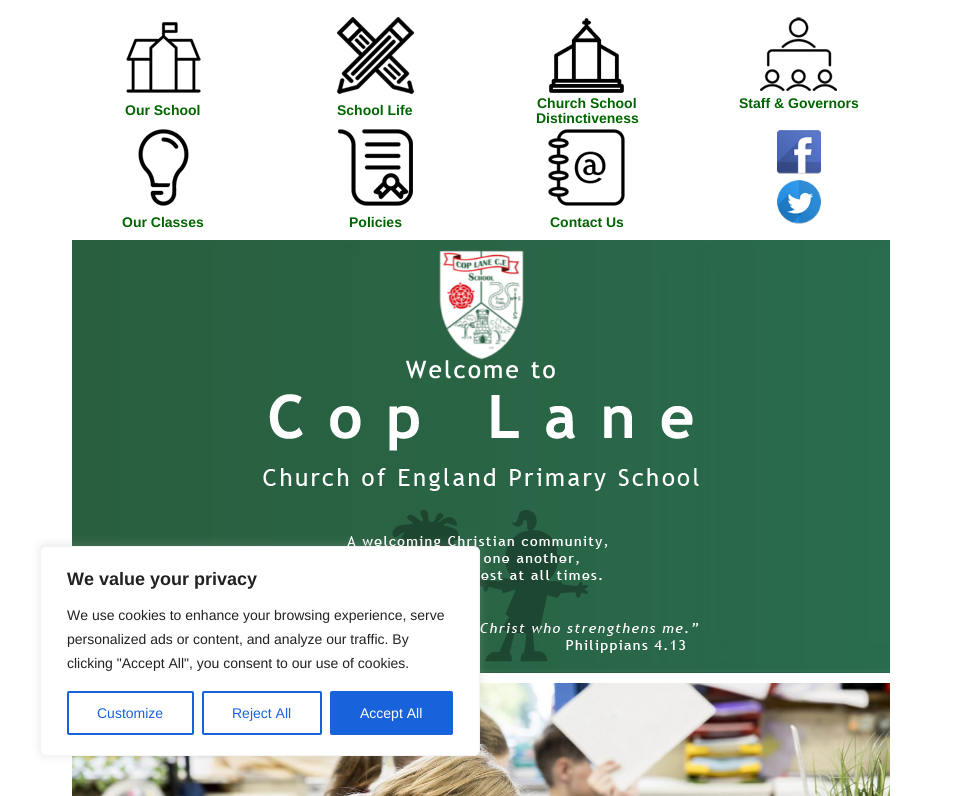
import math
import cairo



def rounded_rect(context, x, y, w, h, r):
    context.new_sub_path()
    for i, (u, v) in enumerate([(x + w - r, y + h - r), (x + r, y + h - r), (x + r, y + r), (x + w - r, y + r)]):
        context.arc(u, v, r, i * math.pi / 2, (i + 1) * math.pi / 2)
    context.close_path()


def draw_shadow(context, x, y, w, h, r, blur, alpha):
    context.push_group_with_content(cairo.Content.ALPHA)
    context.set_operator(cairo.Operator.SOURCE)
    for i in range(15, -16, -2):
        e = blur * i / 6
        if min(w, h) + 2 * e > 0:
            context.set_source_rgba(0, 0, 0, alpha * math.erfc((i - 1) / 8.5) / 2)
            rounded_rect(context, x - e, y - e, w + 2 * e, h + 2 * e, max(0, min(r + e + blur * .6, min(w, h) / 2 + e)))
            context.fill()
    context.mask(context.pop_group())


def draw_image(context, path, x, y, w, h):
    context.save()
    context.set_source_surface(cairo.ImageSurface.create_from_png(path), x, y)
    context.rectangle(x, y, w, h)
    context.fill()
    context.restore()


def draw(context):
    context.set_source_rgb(1, 1, 1)
    context.paint()
    draw_image(context, "images/1.png", 126, 22, 75, 71)
    draw_image(context, "images/2.png", 337, 17, 77, 77)
    draw_image(context, "images/3.png", 549, 18, 75, 75)
    draw_image(context, "images/4.png", 760, 17, 77, 74)
    draw_image(context, "images/5.png", 138, 129, 51, 77)
    draw_image(context, "images/6.png", 338, 129, 75, 77)
    draw_image(context, "images/7.png", 548, 129, 77, 77)
    draw_image(context, "images/8.png", 777, 130, 44, 44)
    draw_image(context, "images/9.png", 777, 180, 44, 44)
    draw_image(context, "images/10.png", 72, 240, 818, 433)
    context.set_source_rgba(0, 0, 0, 0.1)
    context.rectangle(480, 672, 410, 1)
    context.fill()
    draw_image(context, "images/11.png", 439, 250, 85, 110)
    draw_image(context, "images/12.png", 263, 360, 436, 131)
    draw_image(context, "images/13.png", 347, 510, 352, 152)
    draw_image(context, "images/14.png", 72, 683, 818, 113)
    context.set_source_rgb(172 / 255, 171 / 255, 171 / 255)
    draw_shadow(context, 40, 545, 440, 210, 6, 5, 0.3)
    context.set_source_rgb(1, 1, 1)
    rounded_rect(context, 40.5, 546.5, 439, 209, 5.5)
    context.fill_preserve()
    context.set_source_rgb(244 / 255, 244 / 255, 244 / 255)
    context.set_line_width(1)
    context.stroke()
    rounded_rect(context, 68, 692, 125, 42, 1)
    context.set_source_rgb(24 / 255, 99 / 255, 220 / 255)
    context.set_line_width(2)
    context.stroke()
    rounded_rect(context, 203, 692, 118, 42, 1)
    context.stroke()
    rounded_rect(context, 331, 692, 121, 42, 1)
    context.fill_preserve()
    context.stroke()
    context.select_font_face("Liberation Sans", cairo.FontSlant.NORMAL, cairo.FontWeight.BOLD)
    context.set_font_size(14)
    context.set_source_rgb(0, 100 / 255, 0)
    context.move_to(125, 115)
    context.show_text("Our School")
    context.move_to(337, 115)
    context.show_text("School Life")
    context.move_to(537, 108)
    context.show_text("Church School")
    context.move_to(536, 123)
    context.show_text("Distinctiveness")
    context.move_to(739, 108)
    context.show_text("Staff & Governors")
    context.move_to(122, 227)
    context.show_text("Our Classes")
    context.move_to(349, 227)
    context.show_text("Policies")
    context.move_to(550, 227)
    context.show_text("Contact Us")
    context.set_font_size(18)
    context.set_source_rgb(33 / 255, 33 / 255, 33 / 255)
    context.move_to(67, 585)
    context.show_text("We value your privacy")
    context.select_font_face("Liberation Sans")
    context.set_font_size(14)
    context.move_to(67, 620)
    context.show_text("We use cookies to enhance your browsing experience, serve")
    context.move_to(67, 644)
    context.show_text("personalized ads or content, and analyze our traffic. By")
    context.move_to(67, 668)
    context.show_text("clicking \"Accept All\", you consent to our use of cookies.")
    context.set_source_rgb(24 / 255, 99 / 255, 220 / 255)
    context.move_to(97, 718)
    context.show_text("Customize")
    context.move_to(232, 718)
    context.show_text("Reject All")
    context.set_source_rgb(1, 1, 1)
    context.move_to(360, 718)
    context.show_text("Accept All")


surface = cairo.ImageSurface(cairo.Format.RGB24, 962, 796)
context = cairo.Context(surface)
options = cairo.FontOptions()
options.set_hint_metrics(cairo.HintMetrics.OFF)
options.set_hint_style(cairo.HintStyle.NONE)
context.set_font_options(options)
context.set_miter_limit(4)
draw(context)
surface.write_to_png("out.png")
